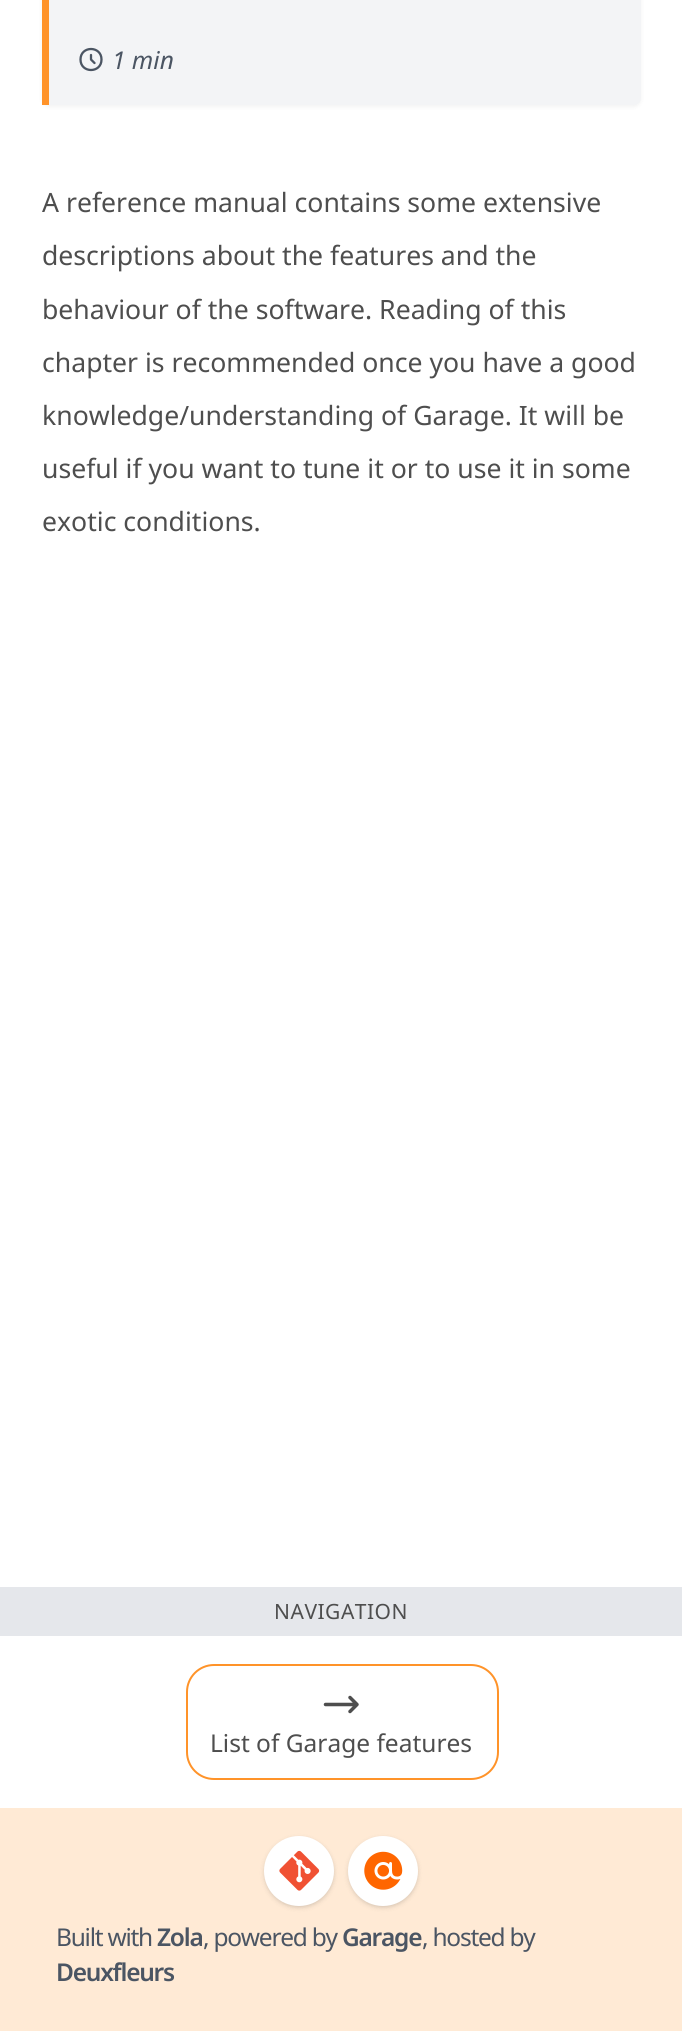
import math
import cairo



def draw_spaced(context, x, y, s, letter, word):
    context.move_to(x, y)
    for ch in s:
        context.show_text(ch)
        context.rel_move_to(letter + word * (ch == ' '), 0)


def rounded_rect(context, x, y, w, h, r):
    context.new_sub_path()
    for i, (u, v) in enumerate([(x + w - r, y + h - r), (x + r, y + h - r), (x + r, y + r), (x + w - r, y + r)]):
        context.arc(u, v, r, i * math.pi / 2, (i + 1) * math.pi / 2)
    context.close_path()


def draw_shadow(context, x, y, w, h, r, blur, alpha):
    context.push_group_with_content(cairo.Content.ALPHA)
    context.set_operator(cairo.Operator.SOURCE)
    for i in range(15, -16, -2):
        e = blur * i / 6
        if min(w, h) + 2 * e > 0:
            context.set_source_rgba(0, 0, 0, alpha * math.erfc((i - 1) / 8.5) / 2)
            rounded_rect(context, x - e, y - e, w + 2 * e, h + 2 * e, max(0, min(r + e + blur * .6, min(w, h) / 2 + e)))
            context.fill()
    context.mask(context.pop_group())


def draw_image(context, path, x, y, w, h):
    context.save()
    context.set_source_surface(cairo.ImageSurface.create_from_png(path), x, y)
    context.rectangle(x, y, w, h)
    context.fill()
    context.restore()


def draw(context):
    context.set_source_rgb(1, 1, 1)
    context.paint()
    context.set_source_rgb(0, 0, 0)
    draw_shadow(context, 42, -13, 599, 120, 7, 2, 0.05)
    context.set_source_rgb(243 / 255, 244 / 255, 246 / 255)
    context.new_path()
    context.move_to(42, -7)
    context.line_to(634, -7)
    context.curve_to(638, -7, 641, -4, 641, 0)
    context.line_to(641, 98)
    context.curve_to(641, 102, 638, 105, 634, 105)
    context.line_to(42, 105)
    context.close_path()
    context.fill()
    context.set_source_rgb(1, 147 / 255, 41 / 255)
    context.rectangle(42, 0, 7, 105)
    context.fill()
    context.new_path()
    context.move_to(91, 55)
    context.line_to(91, 59.5)
    context.line_to(94.5, 63)
    context.move_to(101.5, 59.5)
    context.curve_to(101.5, 73.5, 80.5, 73.5, 80.5, 59.5)
    context.curve_to(80.5, 45.5, 101.5, 45.5, 101.5, 59.5)
    context.close_path()
    context.set_source_rgb(75 / 255, 85 / 255, 99 / 255)
    context.set_line_width(2.3)
    context.set_line_cap(cairo.LineCap.ROUND)
    context.set_line_join(cairo.LineJoin.ROUND)
    context.stroke()
    context.set_source_rgb(229 / 255, 231 / 255, 235 / 255)
    context.rectangle(0, 1587, 682, 49)
    context.fill()
    rounded_rect(context, 187, 1665, 311, 114, 27)
    context.set_source_rgb(1, 147 / 255, 41 / 255)
    context.set_line_width(2)
    context.set_line_cap(cairo.LineCap.BUTT)
    context.set_line_join(cairo.LineJoin.MITER)
    context.stroke()
    context.new_path()
    context.move_to(350, 1697.5)
    context.line_to(357, 1704.5)
    context.move_to(357, 1704.5)
    context.line_to(350, 1711.5)
    context.move_to(357, 1704.5)
    context.line_to(325.5, 1704.5)
    context.set_source_rgb(78 / 255, 78 / 255, 78 / 255)
    context.set_line_width(3.5)
    context.set_line_cap(cairo.LineCap.ROUND)
    context.set_line_join(cairo.LineJoin.ROUND)
    context.stroke()
    context.set_source_rgb(1, 234 / 255, 213 / 255)
    context.rectangle(0, 1808, 682, 223)
    context.fill()
    context.set_source_rgb(0, 0, 0)
    draw_shadow(context, 266, 1839, 67, 67, 33.5, 2, 0.1)
    draw_shadow(context, 264, 1838, 70, 70, 35, 2.5, 0.1)
    context.set_source_rgb(1, 1, 1)
    context.arc(299, 1871, 35, 0, 2 * math.pi)
    context.fill()
    draw_image(context, "images/1.png", 279, 1850, 41, 41)
    context.set_source_rgb(0, 0, 0)
    draw_shadow(context, 350, 1839, 67, 67, 33.5, 2, 0.1)
    draw_shadow(context, 348, 1838, 70, 70, 35, 2.5, 0.1)
    context.set_source_rgb(1, 1, 1)
    context.arc(383, 1871, 35, 0, 2 * math.pi)
    context.fill()
    draw_image(context, "images/2.png", 364, 1851, 39, 39)
    context.select_font_face("Noto Sans", cairo.FontSlant.ITALIC)
    context.set_font_size(24.5)
    context.set_source_rgb(75 / 255, 85 / 255, 99 / 255)
    context.move_to(112, 69)
    context.show_text("1 min")
    context.select_font_face("Noto Sans")
    context.set_font_size(26.6)
    context.set_source_rgb(78 / 255, 78 / 255, 78 / 255)
    context.move_to(42, 212)
    context.show_text("A reference manual contains some extensive")
    context.move_to(42, 265)
    context.show_text("descriptions about the features and the")
    context.move_to(42, 319)
    context.show_text("behaviour of the software. Reading of this")
    context.move_to(42, 372)
    context.show_text("chapter is recommended once you have a good")
    context.move_to(42, 425)
    context.show_text("knowledge/understanding of Garage. It will be")
    context.move_to(42, 478)
    context.show_text("useful if you want to tune it or to use it in some")
    context.move_to(42, 531)
    context.show_text("exotic conditions.")
    context.set_font_size(21)
    draw_spaced(context, 274, 1619, "NAVIGATION", 0.5, 0)
    context.set_font_size(24.5)
    context.move_to(210, 1752)
    context.show_text("List of Garage features")
    context.set_source_rgb(75 / 255, 85 / 255, 99 / 255)
    draw_spaced(context, 56, 1946, "Built with", -1.25, 0)
    context.select_font_face("Noto Sans SemiBold")
    draw_spaced(context, 157, 1946, "Zola", -1.25, 0)
    context.select_font_face("Noto Sans")
    draw_spaced(context, 203, 1946, ", powered by", -1.25, 0)
    context.select_font_face("Noto Sans SemiBold")
    draw_spaced(context, 342, 1946, "Garage", -1.25, 0)
    context.select_font_face("Noto Sans")
    draw_spaced(context, 422, 1946, ", hosted by", -1.25, 0)
    context.select_font_face("Noto Sans SemiBold")
    draw_spaced(context, 56, 1981, "Deuxfleurs", -1.25, 0)


surface = cairo.ImageSurface(cairo.Format.RGB24, 682, 2031)
context = cairo.Context(surface)
options = cairo.FontOptions()
options.set_hint_metrics(cairo.HintMetrics.OFF)
options.set_hint_style(cairo.HintStyle.NONE)
context.set_font_options(options)
context.set_miter_limit(4)
draw(context)
surface.write_to_png("out.png")
